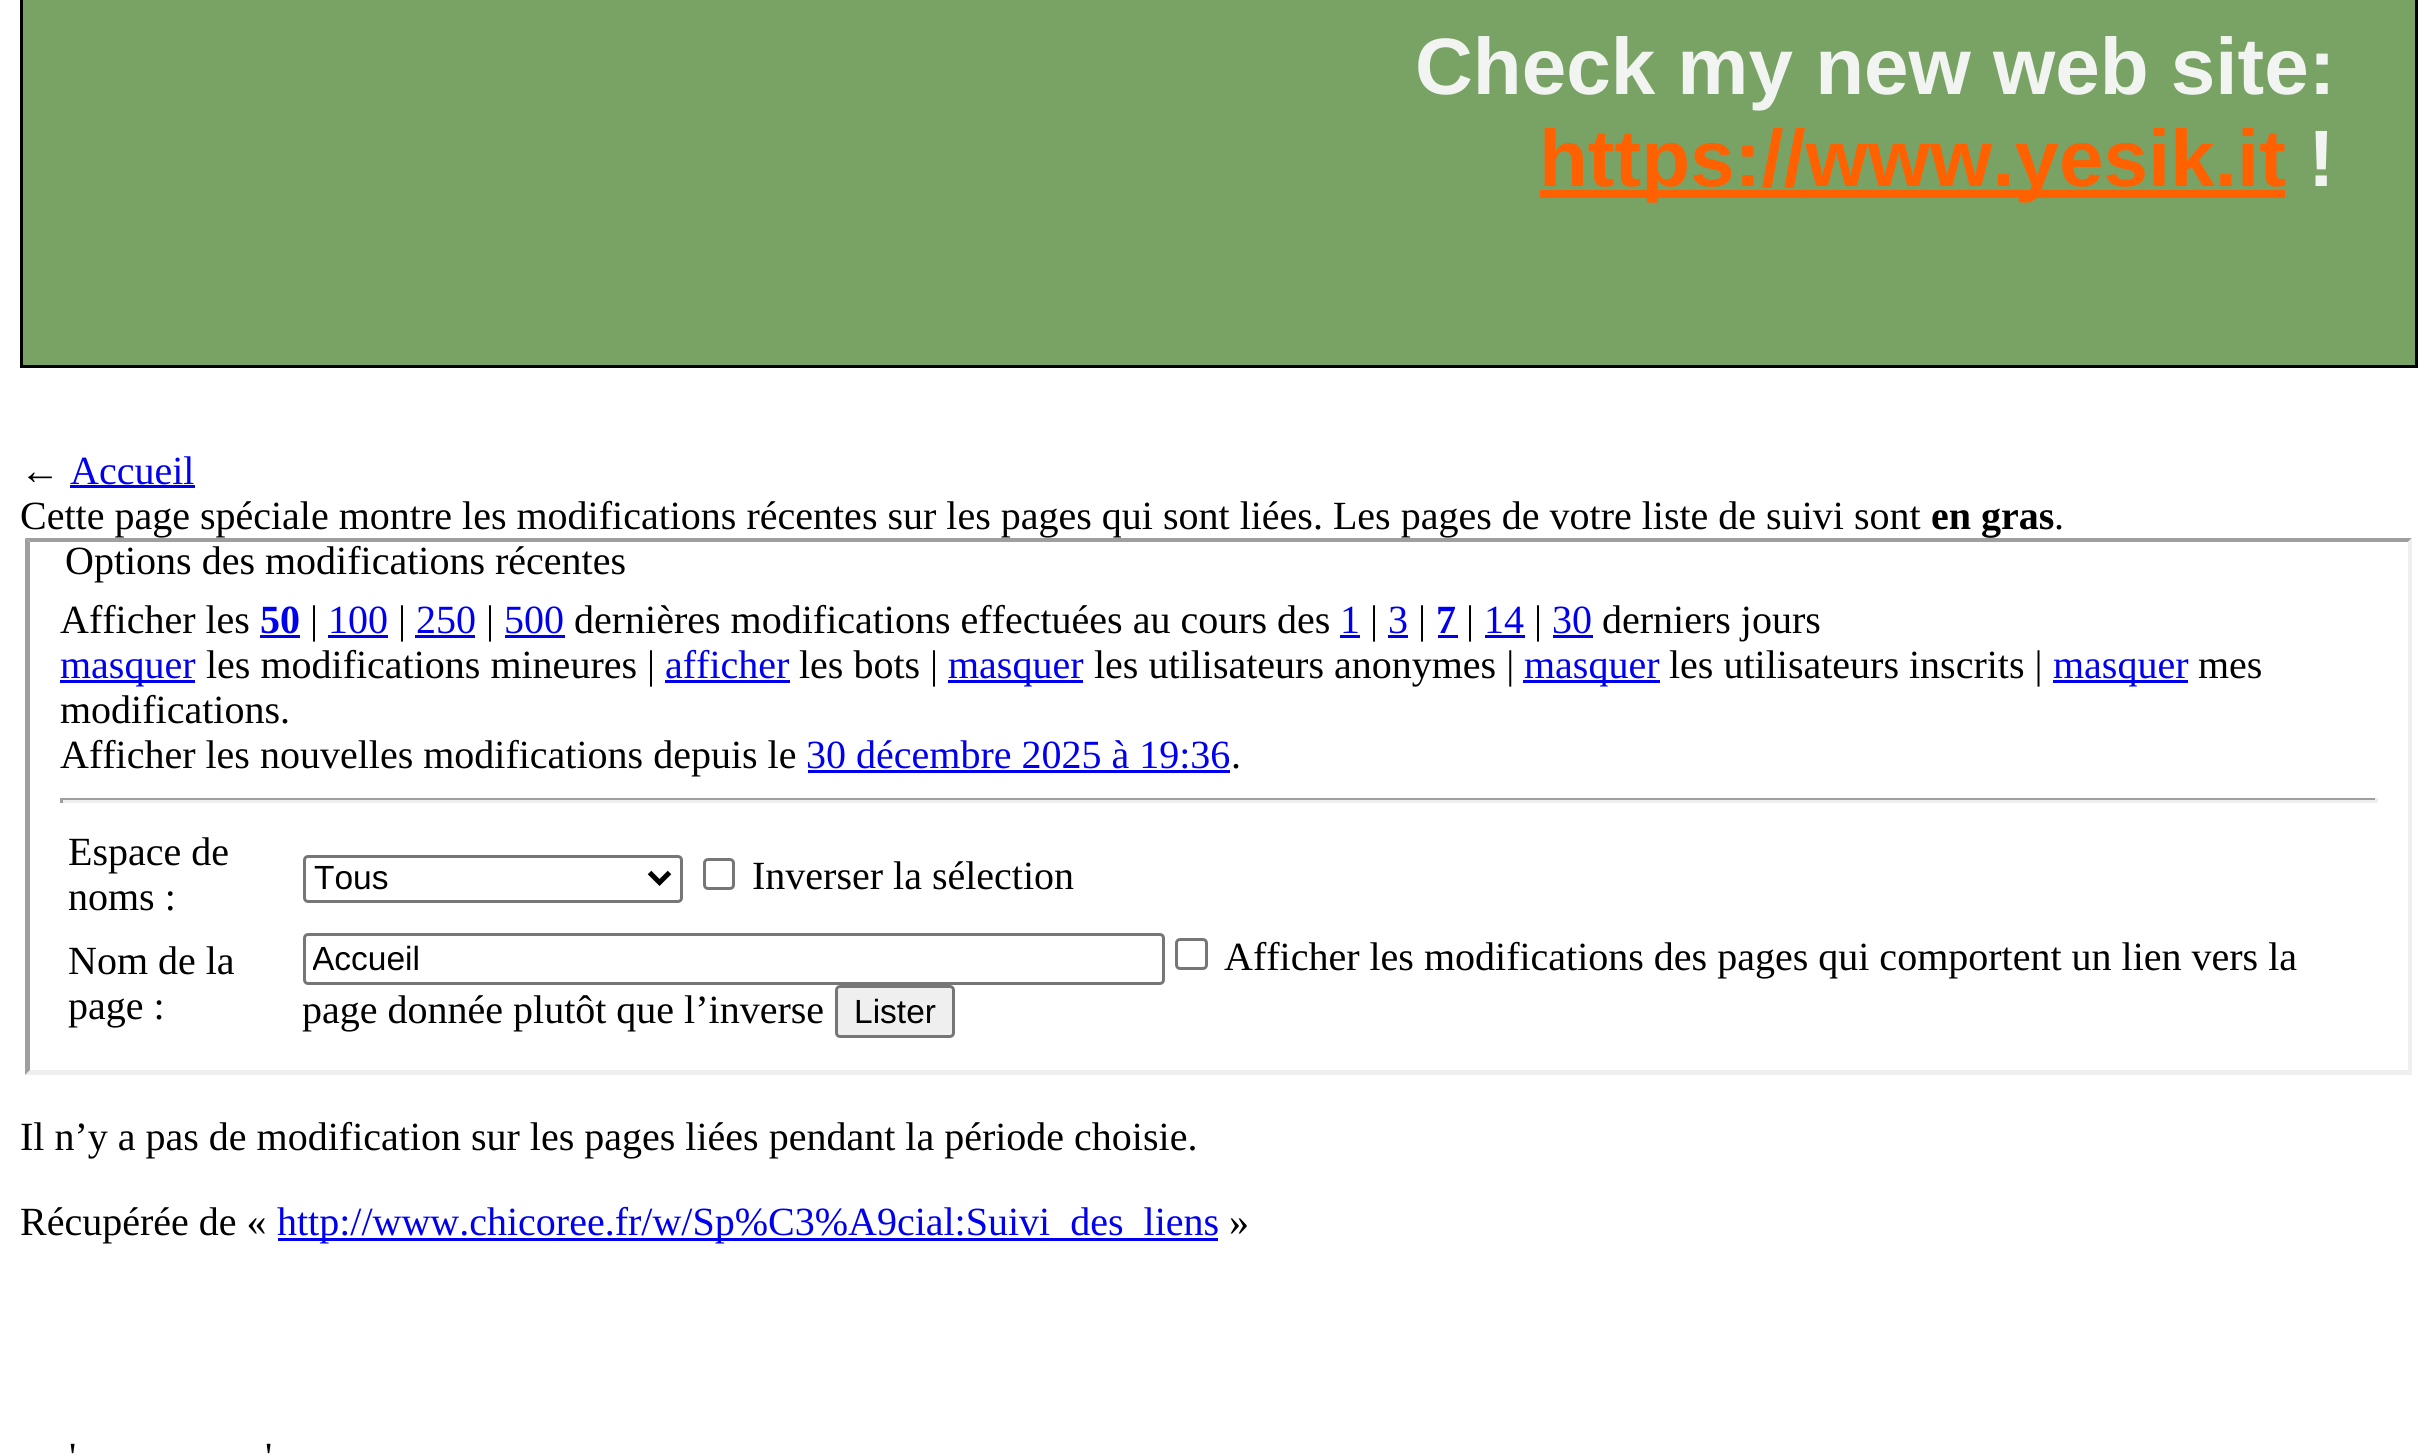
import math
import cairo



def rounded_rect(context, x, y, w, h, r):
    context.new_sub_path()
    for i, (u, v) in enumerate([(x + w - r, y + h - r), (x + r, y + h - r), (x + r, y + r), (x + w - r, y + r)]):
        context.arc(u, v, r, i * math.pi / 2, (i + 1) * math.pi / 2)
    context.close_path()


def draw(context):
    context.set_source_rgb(1, 1, 1)
    context.paint()
    context.set_source_rgb(121 / 255, 163 / 255, 101 / 255)
    context.rectangle(21.5, -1.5, 2395, 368)
    context.fill_preserve()
    context.set_source_rgb(0, 0, 0)
    context.set_line_width(3)
    context.stroke()
    context.set_source_rgb(1, 97 / 255, 0)
    context.rectangle(1540, 190, 745, 8)
    context.fill()
    context.set_source_rgb(0, 0, 238 / 255)
    context.rectangle(70, 485, 125, 3)
    context.fill()
    context.set_source_rgb(159 / 255, 159 / 255, 159 / 255)
    context.new_path()
    context.move_to(25, 538)
    context.line_to(2412, 538)
    context.line_to(2408, 542)
    context.line_to(30, 542)
    context.close_path()
    context.fill()
    context.set_source_rgb(239 / 255, 239 / 255, 239 / 255)
    context.new_path()
    context.move_to(2412, 538)
    context.line_to(2412, 1075)
    context.line_to(2408, 1070)
    context.line_to(2408, 542)
    context.close_path()
    context.fill()
    context.new_path()
    context.move_to(2412, 1075)
    context.line_to(25, 1075)
    context.line_to(30, 1070)
    context.line_to(2408, 1070)
    context.close_path()
    context.fill()
    context.set_source_rgb(159 / 255, 159 / 255, 159 / 255)
    context.new_path()
    context.move_to(25, 1075)
    context.line_to(25, 538)
    context.line_to(30, 542)
    context.line_to(30, 1070)
    context.close_path()
    context.fill()
    context.set_source_rgb(0, 0, 238 / 255)
    context.rectangle(260, 635, 40, 3)
    context.fill()
    context.rectangle(328, 635, 60, 3)
    context.fill()
    context.rectangle(415, 635, 60, 3)
    context.fill()
    context.rectangle(505, 635, 60, 3)
    context.fill()
    context.rectangle(1340, 635, 20, 3)
    context.fill()
    context.rectangle(1388, 635, 20, 3)
    context.fill()
    context.rectangle(1438, 635, 20, 3)
    context.fill()
    context.rectangle(1485, 635, 40, 3)
    context.fill()
    context.rectangle(1553, 635, 40, 3)
    context.fill()
    context.rectangle(60, 680, 135, 3)
    context.fill()
    context.rectangle(665, 680, 125, 3)
    context.fill()
    context.rectangle(948, 680, 135, 3)
    context.fill()
    context.rectangle(1523, 680, 137, 3)
    context.fill()
    context.rectangle(2053, 680, 135, 3)
    context.fill()
    context.rectangle(808, 770, 422, 3)
    context.fill()
    context.set_source_rgb(159 / 255, 159 / 255, 159 / 255)
    context.rectangle(60, 798, 2318, 2)
    context.fill()
    context.set_source_rgb(238 / 255, 238 / 255, 238 / 255)
    context.rectangle(2375, 798, 3, 5)
    context.fill()
    context.rectangle(60, 800, 2318, 3)
    context.fill()
    context.set_source_rgb(159 / 255, 159 / 255, 159 / 255)
    context.rectangle(60, 798, 3, 5)
    context.fill()
    rounded_rect(context, 304.5, 856.5, 377, 45, 3.5)
    context.set_source_rgb(118 / 255, 118 / 255, 118 / 255)
    context.stroke()
    context.new_path()
    context.move_to(649.5, 872.5)
    context.line_to(659.5, 882.5)
    context.line_to(669.5, 872.5)
    context.set_source_rgb(0, 0, 0)
    context.set_line_width(5)
    context.stroke()
    rounded_rect(context, 704.5, 859.5, 29, 29, 3.5)
    context.set_source_rgb(118 / 255, 118 / 255, 118 / 255)
    context.set_line_width(3)
    context.stroke()
    rounded_rect(context, 304.5, 934.5, 859, 49, 3.5)
    context.stroke()
    rounded_rect(context, 1176.5, 939.5, 30, 29, 3.5)
    context.stroke()
    context.set_source_rgb(239 / 255, 239 / 255, 239 / 255)
    rounded_rect(context, 836.5, 986.5, 117, 50, 3.5)
    context.fill_preserve()
    context.set_source_rgb(118 / 255, 118 / 255, 118 / 255)
    context.stroke()
    context.set_source_rgb(0, 0, 238 / 255)
    context.rectangle(278, 1238, 940, 3)
    context.fill()
    context.select_font_face("Liberation Sans", cairo.FontSlant.NORMAL, cairo.FontWeight.BOLD)
    context.set_font_size(80)
    context.set_source_rgb(242 / 255, 244 / 255, 242 / 255)
    context.move_to(1415, 94)
    context.show_text("Check my new web site:")
    context.set_source_rgb(1, 97 / 255, 0)
    context.move_to(1539, 186)
    context.show_text("https://www.yesik.it")
    context.set_source_rgb(242 / 255, 244 / 255, 242 / 255)
    context.move_to(2308, 186)
    context.show_text("!")
    context.select_font_face("Liberation Serif")
    context.set_font_size(40)
    context.set_source_rgb(0, 0, 0)
    context.move_to(20, 484)
    context.show_text("←")
    context.set_source_rgb(0, 0, 238 / 255)
    context.move_to(70, 484)
    context.show_text("Accueil")
    context.set_source_rgb(0, 0, 0)
    context.move_to(20, 529)
    context.show_text("Cette page spéciale montre les modifications récentes sur les pages qui sont liées. Les pages de votre liste de suivi sont")
    context.select_font_face("Liberation Serif", cairo.FontSlant.NORMAL, cairo.FontWeight.BOLD)
    context.move_to(1931, 529)
    context.show_text("en gras")
    context.select_font_face("Liberation Serif")
    context.move_to(2054, 529)
    context.show_text(".")
    context.move_to(65, 574)
    context.show_text("Options des modifications récentes")
    context.move_to(60, 633)
    context.show_text("Afficher les")
    context.select_font_face("Liberation Serif", cairo.FontSlant.NORMAL, cairo.FontWeight.BOLD)
    context.set_source_rgb(0, 0, 238 / 255)
    context.move_to(260, 633)
    context.show_text("50")
    context.select_font_face("Liberation Serif")
    context.set_source_rgb(0, 0, 0)
    context.move_to(310, 633)
    context.show_text("|")
    context.set_source_rgb(0, 0, 238 / 255)
    context.move_to(328, 633)
    context.show_text("100")
    context.set_source_rgb(0, 0, 0)
    context.move_to(398, 633)
    context.show_text("|")
    context.set_source_rgb(0, 0, 238 / 255)
    context.move_to(416, 633)
    context.show_text("250")
    context.set_source_rgb(0, 0, 0)
    context.move_to(486, 633)
    context.show_text("|")
    context.set_source_rgb(0, 0, 238 / 255)
    context.move_to(504, 633)
    context.show_text("500")
    context.set_source_rgb(0, 0, 0)
    context.move_to(574, 633)
    context.show_text("dernières modifications effectuées au cours des")
    context.set_source_rgb(0, 0, 238 / 255)
    context.move_to(1340, 633)
    context.show_text("1")
    context.set_source_rgb(0, 0, 0)
    context.move_to(1370, 633)
    context.show_text("|")
    context.set_source_rgb(0, 0, 238 / 255)
    context.move_to(1388, 633)
    context.show_text("3")
    context.set_source_rgb(0, 0, 0)
    context.move_to(1418, 633)
    context.show_text("|")
    context.select_font_face("Liberation Serif", cairo.FontSlant.NORMAL, cairo.FontWeight.BOLD)
    context.set_source_rgb(0, 0, 238 / 255)
    context.move_to(1436, 633)
    context.show_text("7")
    context.select_font_face("Liberation Serif")
    context.set_source_rgb(0, 0, 0)
    context.move_to(1466, 633)
    context.show_text("|")
    context.set_source_rgb(0, 0, 238 / 255)
    context.move_to(1484, 633)
    context.show_text("14")
    context.set_source_rgb(0, 0, 0)
    context.move_to(1534, 633)
    context.show_text("|")
    context.set_source_rgb(0, 0, 238 / 255)
    context.move_to(1552, 633)
    context.show_text("30")
    context.set_source_rgb(0, 0, 0)
    context.move_to(1602, 633)
    context.show_text("derniers jours")
    context.set_source_rgb(0, 0, 238 / 255)
    context.move_to(60, 678)
    context.show_text("masquer")
    context.set_source_rgb(0, 0, 0)
    context.move_to(206, 678)
    context.show_text("les modifications mineures |")
    context.set_source_rgb(0, 0, 238 / 255)
    context.move_to(665, 678)
    context.show_text("afficher")
    context.set_source_rgb(0, 0, 0)
    context.move_to(799, 678)
    context.show_text("les bots |")
    context.set_source_rgb(0, 0, 238 / 255)
    context.move_to(948, 678)
    context.show_text("masquer")
    context.set_source_rgb(0, 0, 0)
    context.move_to(1094, 678)
    context.show_text("les utilisateurs anonymes |")
    context.set_source_rgb(0, 0, 238 / 255)
    context.move_to(1524, 678)
    context.show_text("masquer")
    context.set_source_rgb(0, 0, 0)
    context.move_to(1669, 678)
    context.show_text("les utilisateurs inscrits |")
    context.set_source_rgb(0, 0, 238 / 255)
    context.move_to(2053, 678)
    context.show_text("masquer")
    context.set_source_rgb(0, 0, 0)
    context.move_to(2198, 678)
    context.show_text("mes")
    context.move_to(60, 723)
    context.show_text("modifications.")
    context.move_to(60, 768)
    context.show_text("Afficher les nouvelles modifications depuis le")
    context.set_source_rgb(0, 0, 238 / 255)
    context.move_to(806, 768)
    context.show_text("30 décembre 2025 à 19:36")
    context.set_source_rgb(0, 0, 0)
    context.move_to(1231, 768)
    context.show_text(".")
    context.move_to(68, 865)
    context.show_text("Espace de")
    context.move_to(68, 910)
    context.show_text("noms :")
    context.select_font_face("Liberation Sans")
    context.set_font_size(33.5)
    context.move_to(314, 889)
    context.show_text("Tous")
    context.select_font_face("Liberation Serif")
    context.set_font_size(40)
    context.move_to(752, 889)
    context.show_text("Inverser la sélection")
    context.move_to(68, 974)
    context.show_text("Nom de la")
    context.move_to(68, 1019)
    context.show_text("page :")
    context.save()
    context.rectangle(313, 940, 842, 38)
    context.clip()
    context.select_font_face("Liberation Sans")
    context.set_font_size(33.5)
    context.move_to(312, 970)
    context.show_text("Accueil")
    context.restore()
    context.move_to(1224, 970)
    context.show_text("Afficher les modifications des pages qui comportent un lien vers la")
    context.move_to(302, 1023)
    context.show_text("page donnée plutôt que l’inverse")
    context.select_font_face("Liberation Sans")
    context.set_font_size(33.5)
    context.move_to(854, 1023)
    context.show_text("Lister")
    context.select_font_face("Liberation Serif")
    context.set_font_size(40)
    context.move_to(20, 1150)
    context.show_text("Il n’y a pas de modification sur les pages liées pendant la période choisie.")
    context.move_to(20, 1235)
    context.show_text("Récupérée de «")
    context.set_source_rgb(0, 0, 238 / 255)
    context.move_to(277, 1235)
    context.show_text("http://www.chicoree.fr/w/Sp%C3%A9cial:Suivi_des_liens")
    context.set_source_rgb(0, 0, 0)
    context.move_to(1229, 1235)
    context.show_text("»")
    context.move_to(69, 1470)
    context.show_text("'")
    context.move_to(265, 1470)
    context.show_text("'")


surface = cairo.ImageSurface(cairo.Format.RGB24, 2436, 1456)
context = cairo.Context(surface)
options = cairo.FontOptions()
options.set_hint_metrics(cairo.HintMetrics.OFF)
options.set_hint_style(cairo.HintStyle.NONE)
context.set_font_options(options)
context.set_miter_limit(4)
draw(context)
surface.write_to_png("out.png")
